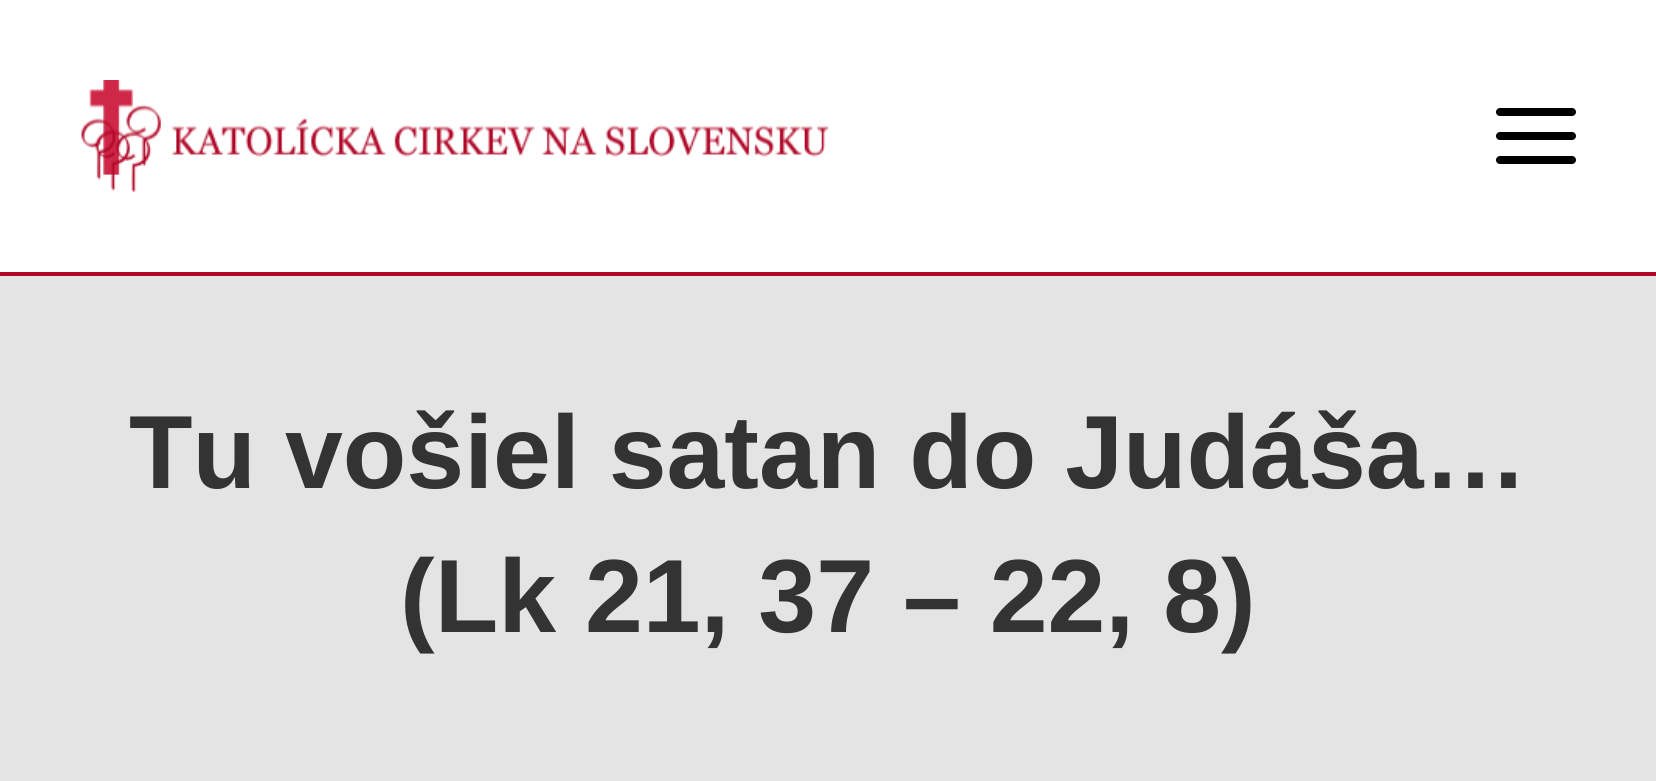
import math
import cairo



def rounded_rect(context, x, y, w, h, r):
    context.new_sub_path()
    for i, (u, v) in enumerate([(x + w - r, y + h - r), (x + r, y + h - r), (x + r, y + r), (x + w - r, y + r)]):
        context.arc(u, v, r, i * math.pi / 2, (i + 1) * math.pi / 2)
    context.close_path()


def draw_image(context, path, x, y, w, h):
    context.save()
    context.set_source_surface(cairo.ImageSurface.create_from_png(path), x, y)
    context.rectangle(x, y, w, h)
    context.fill()
    context.restore()


def draw(context):
    context.set_source_rgb(228 / 255, 228 / 255, 228 / 255)
    context.paint()
    context.set_source_rgb(1, 1, 1)
    context.rectangle(0, 0, 1656, 272)
    context.fill()
    context.set_source_rgb(176 / 255, 9 / 255, 39 / 255)
    context.rectangle(0, 272, 1656, 4)
    context.fill()
    draw_image(context, "images/1.png", 81, 80, 747, 112)
    context.set_source_rgb(0, 0, 0)
    rounded_rect(context, 1496, 132, 80, 8, 4)
    context.fill()
    rounded_rect(context, 1496, 108, 80, 8, 4)
    context.fill()
    rounded_rect(context, 1496, 156, 80, 8, 4)
    context.fill()
    context.select_font_face("Liberation Sans", cairo.FontSlant.NORMAL, cairo.FontWeight.BOLD)
    context.set_font_size(104)
    context.set_source_rgb(51 / 255, 51 / 255, 51 / 255)
    context.move_to(129, 488)
    context.show_text("Tu vošiel satan do Judáša…")
    context.move_to(400, 632)
    context.show_text("(Lk 21, 37 – 22, 8)")


surface = cairo.ImageSurface(cairo.Format.RGB24, 1656, 781)
context = cairo.Context(surface)
options = cairo.FontOptions()
options.set_hint_metrics(cairo.HintMetrics.OFF)
options.set_hint_style(cairo.HintStyle.NONE)
context.set_font_options(options)
context.set_miter_limit(4)
draw(context)
surface.write_to_png("out.png")
